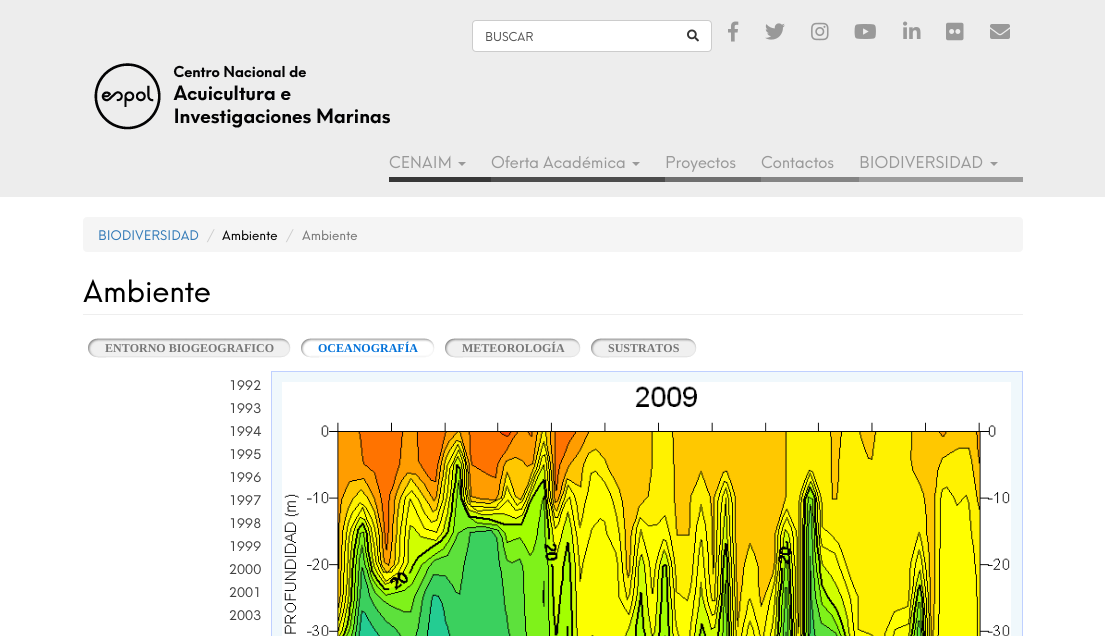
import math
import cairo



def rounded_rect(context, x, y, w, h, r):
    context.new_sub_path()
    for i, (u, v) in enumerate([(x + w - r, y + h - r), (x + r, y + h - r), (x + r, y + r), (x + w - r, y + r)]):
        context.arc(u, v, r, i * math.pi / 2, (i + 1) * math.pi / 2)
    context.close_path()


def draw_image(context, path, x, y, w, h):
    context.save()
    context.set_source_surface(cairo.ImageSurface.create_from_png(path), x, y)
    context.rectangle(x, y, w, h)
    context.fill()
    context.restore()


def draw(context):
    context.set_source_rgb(1, 1, 1)
    context.paint()
    context.set_source_rgb(237 / 255, 237 / 255, 237 / 255)
    context.rectangle(0, 0, 1105, 197)
    context.fill()
    context.set_source_rgb(1, 1, 1)
    rounded_rect(context, 472.5, 20.5, 239, 31, 3.5)
    context.fill_preserve()
    context.set_source_rgb(204 / 255, 204 / 255, 204 / 255)
    context.set_line_width(1)
    context.stroke()
    draw_image(context, "images/1.png", 687, 29, 12, 13)
    draw_image(context, "images/2.png", 728, 21, 11, 21)
    draw_image(context, "images/3.png", 765, 23, 20, 17)
    draw_image(context, "images/4.png", 811, 22, 18, 19)
    draw_image(context, "images/5.png", 854, 24, 22, 15)
    draw_image(context, "images/6.png", 903, 21, 18, 18)
    draw_image(context, "images/7.png", 946, 22, 18, 19)
    draw_image(context, "images/8.png", 990, 24, 20, 15)
    draw_image(context, "images/9.png", 94, 63, 296, 67)
    context.set_source_rgb(55 / 255, 55 / 255, 55 / 255)
    context.rectangle(389, 177, 102, 5)
    context.fill()
    context.set_source_rgb(153 / 255, 153 / 255, 153 / 255)
    context.new_path()
    context.move_to(458, 162)
    context.line_to(466, 162)
    context.line_to(462, 166)
    context.close_path()
    context.fill()
    context.set_source_rgb(76 / 255, 76 / 255, 76 / 255)
    context.rectangle(491, 177, 174, 5)
    context.fill()
    context.set_source_rgb(153 / 255, 153 / 255, 153 / 255)
    context.new_path()
    context.move_to(632, 162)
    context.line_to(640, 162)
    context.line_to(636, 166)
    context.close_path()
    context.fill()
    context.set_source_rgb(110 / 255, 110 / 255, 110 / 255)
    context.rectangle(665, 177, 96, 5)
    context.fill()
    context.set_source_rgb(132 / 255, 132 / 255, 132 / 255)
    context.rectangle(761, 177, 98, 5)
    context.fill()
    context.set_source_rgb(156 / 255, 156 / 255, 156 / 255)
    context.rectangle(859, 177, 164, 5)
    context.fill()
    context.set_source_rgb(153 / 255, 153 / 255, 153 / 255)
    context.new_path()
    context.move_to(990, 162)
    context.line_to(998, 162)
    context.line_to(994, 166)
    context.close_path()
    context.fill()
    context.set_source_rgb(245 / 255, 245 / 255, 245 / 255)
    rounded_rect(context, 83, 217, 940, 35, 4)
    context.fill()
    context.set_source_rgb(238 / 255, 238 / 255, 238 / 255)
    context.rectangle(83, 314, 940, 1)
    context.fill()
    draw_image(context, "images/10.png", 88, 338, 19, 20)
    draw_image(context, "images/11.png", 98, 338, 193, 20)
    draw_image(context, "images/12.png", 301, 338, 18, 20)
    draw_image(context, "images/13.png", 311, 338, 124, 20)
    draw_image(context, "images/14.png", 445, 338, 18, 20)
    draw_image(context, "images/15.png", 455, 338, 126, 20)
    draw_image(context, "images/10.png", 591, 338, 19, 20)
    draw_image(context, "images/16.png", 601, 338, 96, 20)
    context.set_source_rgb(240 / 255, 248 / 255, 252 / 255)
    context.rectangle(271.5, 371.5, 751, 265)
    context.fill_preserve()
    context.set_source_rgb(191 / 255, 208 / 255, 1)
    context.stroke()
    draw_image(context, "images/17.png", 282, 382, 729, 254)
    context.select_font_face("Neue")
    context.set_font_size(12)
    context.set_source_rgb(85 / 255, 85 / 255, 85 / 255)
    context.move_to(485, 41)
    context.show_text("BUSCAR")
    context.set_font_size(16)
    context.set_source_rgb(153 / 255, 153 / 255, 153 / 255)
    context.move_to(389, 168)
    context.show_text("CENAIM")
    context.move_to(491, 168)
    context.show_text("Oferta Académica")
    context.move_to(665, 168)
    context.show_text("Proyectos")
    context.move_to(761, 168)
    context.show_text("Contactos")
    context.move_to(859, 168)
    context.show_text("BIODIVERSIDAD")
    context.set_font_size(13)
    context.set_source_rgb(51 / 255, 122 / 255, 183 / 255)
    context.move_to(98, 240)
    context.show_text("BIODIVERSIDAD")
    context.set_source_rgb(204 / 255, 204 / 255, 204 / 255)
    context.move_to(207, 240)
    context.show_text("/")
    context.set_source_rgb(0, 0, 0)
    context.move_to(222, 240)
    context.show_text("Ambiente")
    context.set_source_rgb(204 / 255, 204 / 255, 204 / 255)
    context.move_to(286, 240)
    context.show_text("/")
    context.set_source_rgb(119 / 255, 119 / 255, 119 / 255)
    context.move_to(302, 240)
    context.show_text("Ambiente")
    context.set_font_size(30)
    context.set_source_rgb(0, 0, 0)
    context.move_to(83, 302)
    context.show_text("Ambiente")
    context.select_font_face("Liberation Serif", cairo.FontSlant.NORMAL, cairo.FontWeight.BOLD)
    context.set_font_size(12)
    context.set_source_rgb(119 / 255, 119 / 255, 119 / 255)
    context.move_to(105, 352)
    context.show_text("ENTORNO BIOGEOGRAFICO")
    context.set_source_rgb(3 / 255, 114 / 255, 217 / 255)
    context.move_to(318, 352)
    context.show_text("OCEANOGRAFÍA")
    context.set_source_rgb(119 / 255, 119 / 255, 119 / 255)
    context.move_to(462, 352)
    context.show_text("METEOROLOGÍA")
    context.move_to(608, 352)
    context.show_text("SUSTRATOS")
    context.select_font_face("Neue")
    context.set_font_size(13)
    context.set_source_rgb(64 / 255, 64 / 255, 64 / 255)
    context.move_to(229, 390)
    context.show_text("1992")
    context.move_to(229, 413)
    context.show_text("1993")
    context.move_to(229, 436)
    context.show_text("1994")
    context.move_to(229, 459)
    context.show_text("1995")
    context.move_to(229, 482)
    context.show_text("1996")
    context.move_to(229, 505)
    context.show_text("1997")
    context.move_to(229, 528)
    context.show_text("1998")
    context.move_to(229, 551)
    context.show_text("1999")
    context.move_to(229, 574)
    context.show_text("2000")
    context.move_to(229, 597)
    context.show_text("2001")
    context.move_to(229, 620)
    context.show_text("2003")


surface = cairo.ImageSurface(cairo.Format.RGB24, 1105, 636)
context = cairo.Context(surface)
options = cairo.FontOptions()
options.set_hint_metrics(cairo.HintMetrics.OFF)
options.set_hint_style(cairo.HintStyle.NONE)
context.set_font_options(options)
context.set_miter_limit(4)
draw(context)
surface.write_to_png("out.png")
